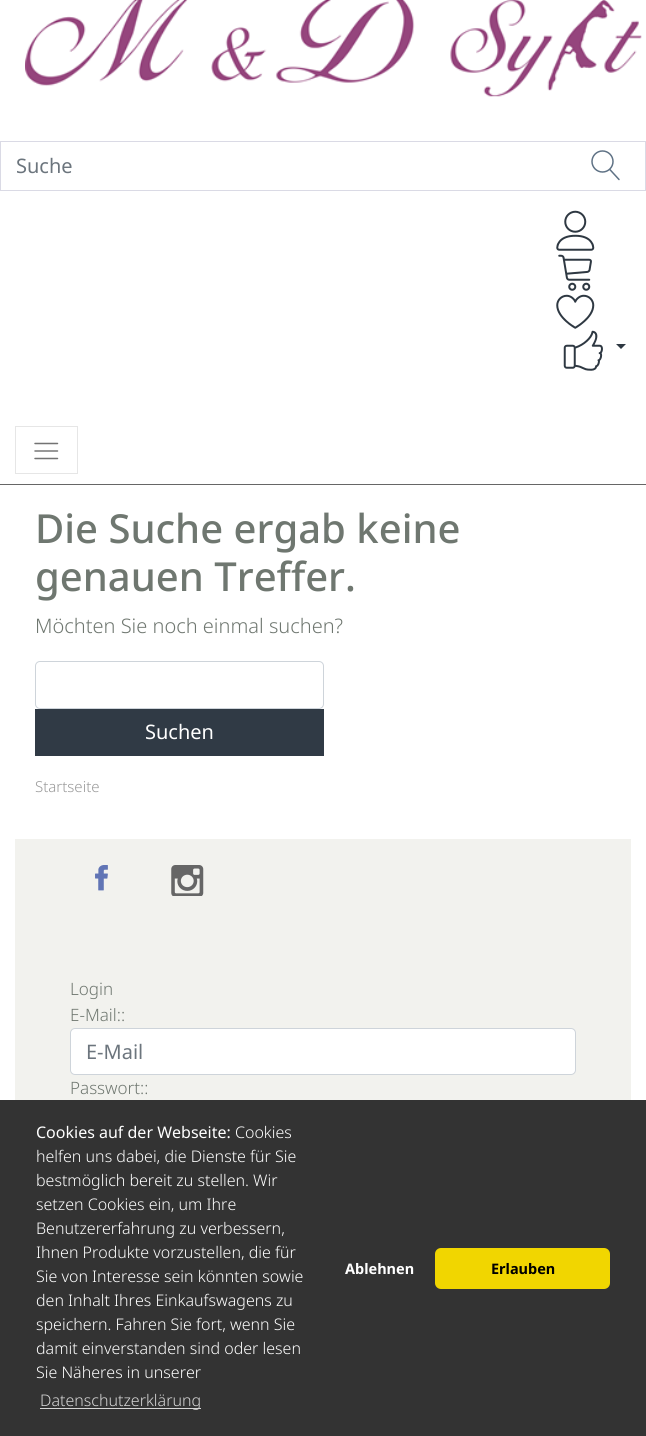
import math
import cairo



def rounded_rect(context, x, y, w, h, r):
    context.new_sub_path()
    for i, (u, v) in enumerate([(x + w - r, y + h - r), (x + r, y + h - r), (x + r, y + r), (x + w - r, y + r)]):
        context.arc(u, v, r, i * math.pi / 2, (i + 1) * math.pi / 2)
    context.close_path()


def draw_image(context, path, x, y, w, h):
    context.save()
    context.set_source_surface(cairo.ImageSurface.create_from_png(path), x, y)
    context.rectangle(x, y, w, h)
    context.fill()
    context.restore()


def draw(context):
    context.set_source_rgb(1, 1, 1)
    context.paint()
    context.set_source_rgb(102 / 255, 102 / 255, 102 / 255)
    context.rectangle(0, 484, 646, 1)
    context.fill()
    draw_image(context, "images/1.png", 25, 0, 617, 97)
    context.rectangle(0.5, 141.5, 645, 49)
    context.set_source_rgb(218 / 255, 218 / 255, 229 / 255)
    context.set_line_width(1)
    context.stroke()
    draw_image(context, "images/2.png", 591, 150, 29, 31)
    draw_image(context, "images/3.png", 556, 210, 39, 41)
    draw_image(context, "images/4.png", 558, 254, 34, 37)
    draw_image(context, "images/5.png", 556, 294, 39, 35)
    draw_image(context, "images/6.png", 563, 330, 40, 41)
    context.set_source_rgb(46 / 255, 56 / 255, 66 / 255)
    context.new_path()
    context.move_to(616, 344)
    context.line_to(626, 344)
    context.line_to(621, 349)
    context.close_path()
    context.fill()
    context.rectangle(15.5, 426.5, 62, 47)
    context.set_source_rgb(230 / 255, 230 / 255, 230 / 255)
    context.stroke()
    draw_image(context, "images/7.png", 34, 442, 25, 18)
    rounded_rect(context, 35.5, 661.5, 288, 47, 4.5)
    context.set_source_rgb(206 / 255, 212 / 255, 218 / 255)
    context.stroke()
    context.set_source_rgb(48 / 255, 58 / 255, 69 / 255)
    context.rectangle(35, 709, 289, 47)
    context.fill()
    context.set_source_rgb(242 / 255, 242 / 255, 238 / 255)
    context.rectangle(15, 839, 616, 261)
    context.fill()
    draw_image(context, "images/8.png", 95, 865, 13, 26)
    draw_image(context, "images/9.png", 171, 865, 33, 31)
    context.set_source_rgb(1, 1, 1)
    rounded_rect(context, 70.5, 1028.5, 505, 46, 4.5)
    context.fill_preserve()
    context.set_source_rgb(206 / 255, 212 / 255, 218 / 255)
    context.stroke()
    context.set_source_rgb(51 / 255, 51 / 255, 51 / 255)
    context.rectangle(0, 1100, 646, 336)
    context.fill()
    context.set_source_rgb(214 / 255, 214 / 255, 214 / 255)
    context.rectangle(40, 1408, 161, 1)
    context.fill()
    context.set_source_rgb(241 / 255, 214 / 255, 0)
    rounded_rect(context, 435, 1248, 175, 41, 6)
    context.fill()
    context.select_font_face("Noto Sans")
    context.set_font_size(20)
    context.set_source_rgb(108 / 255, 117 / 255, 125 / 255)
    context.move_to(16, 173)
    context.show_text("Suche")
    context.select_font_face("Noto Sans Medium")
    context.set_font_size(40)
    context.set_source_rgb(111 / 255, 119 / 255, 112 / 255)
    context.move_to(35, 543)
    context.show_text("Die Suche ergab keine")
    context.move_to(35, 591)
    context.show_text("genauen Treffer.")
    context.select_font_face("Noto Sans Light")
    context.set_font_size(20)
    context.move_to(35, 633)
    context.show_text("Möchten Sie noch einmal suchen?")
    context.select_font_face("Noto Sans")
    context.set_source_rgb(1, 1, 1)
    context.move_to(145, 739)
    context.show_text("Suchen")
    context.select_font_face("Noto Sans Light")
    context.set_font_size(15)
    context.set_source_rgb(153 / 255, 153 / 255, 153 / 255)
    context.move_to(35, 792)
    context.show_text("Startseite")
    context.set_font_size(17)
    context.set_source_rgb(111 / 255, 119 / 255, 112 / 255)
    context.move_to(70, 995)
    context.show_text("Login")
    context.move_to(70, 1021)
    context.show_text("E-Mail::")
    context.select_font_face("Noto Sans")
    context.set_font_size(20)
    context.set_source_rgb(108 / 255, 117 / 255, 125 / 255)
    context.move_to(86, 1059)
    context.show_text("E-Mail")
    context.select_font_face("Noto Sans Light")
    context.set_font_size(17)
    context.set_source_rgb(111 / 255, 119 / 255, 112 / 255)
    context.move_to(70, 1094)
    context.show_text("Passwort::")
    context.select_font_face("Noto Sans")
    context.set_font_size(16)
    context.set_source_rgb(1, 1, 1)
    context.move_to(36, 1138)
    context.show_text("Cookies auf der Webseite:")
    context.select_font_face("Noto Sans Light")
    context.move_to(235, 1138)
    context.show_text("Cookies")
    context.move_to(36, 1162)
    context.show_text("helfen uns dabei, die Dienste für Sie")
    context.move_to(36, 1186)
    context.show_text("bestmöglich bereit zu stellen. Wir")
    context.move_to(36, 1210)
    context.show_text("setzen Cookies ein, um Ihre")
    context.move_to(36, 1234)
    context.show_text("Benutzererfahrung zu verbessern,")
    context.move_to(36, 1258)
    context.show_text("Ihnen Produkte vorzustellen, die für")
    context.move_to(36, 1282)
    context.show_text("Sie von Interesse sein könnten sowie")
    context.move_to(36, 1306)
    context.show_text("den Inhalt Ihres Einkaufswagens zu")
    context.move_to(36, 1330)
    context.show_text("speichern. Fahren Sie fort, wenn Sie")
    context.move_to(36, 1354)
    context.show_text("damit einverstanden sind oder lesen")
    context.move_to(36, 1378)
    context.show_text("Sie Näheres in unserer")
    context.set_source_rgb(214 / 255, 214 / 255, 214 / 255)
    context.move_to(40, 1406)
    context.show_text("Datenschutzerklärung")
    context.select_font_face("Noto Sans", cairo.FontSlant.NORMAL, cairo.FontWeight.BOLD)
    context.set_font_size(14.5)
    context.set_source_rgb(1, 1, 1)
    context.move_to(345, 1274)
    context.show_text("Ablehnen")
    context.set_source_rgb(0, 0, 0)
    context.move_to(491, 1274)
    context.show_text("Erlauben")


surface = cairo.ImageSurface(cairo.Format.RGB24, 646, 1436)
context = cairo.Context(surface)
options = cairo.FontOptions()
options.set_hint_metrics(cairo.HintMetrics.OFF)
options.set_hint_style(cairo.HintStyle.NONE)
context.set_font_options(options)
context.set_miter_limit(4)
draw(context)
surface.write_to_png("out.png")
